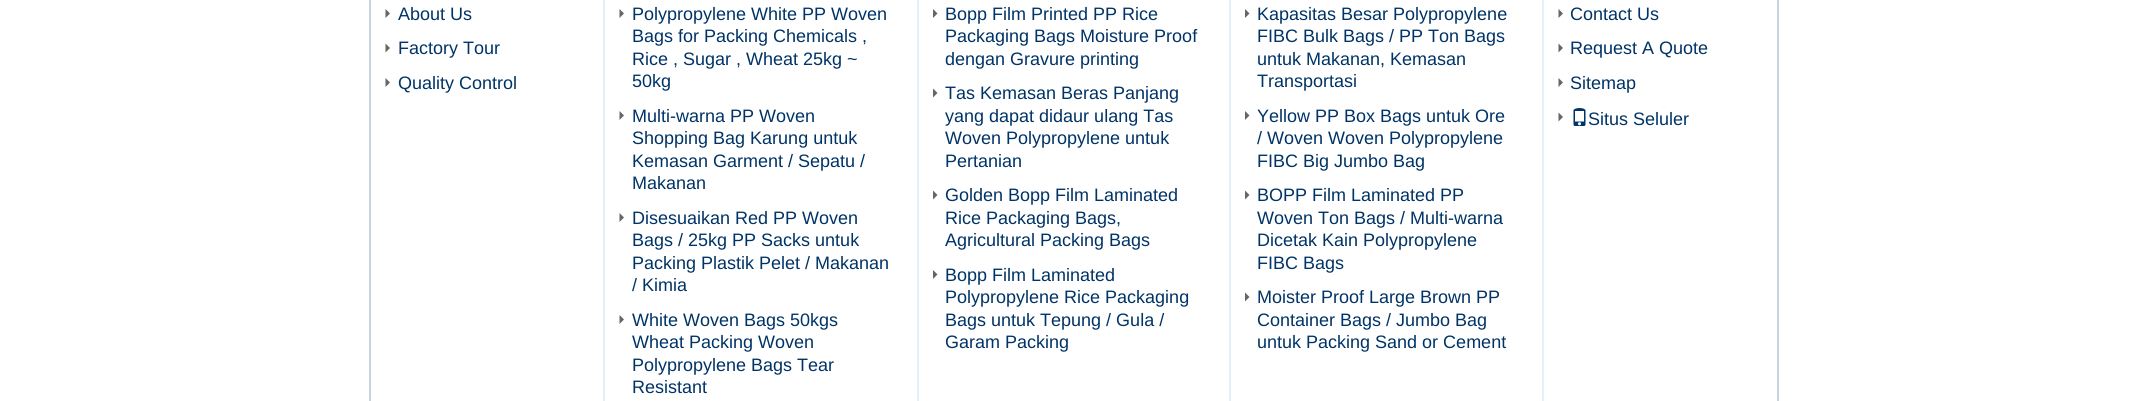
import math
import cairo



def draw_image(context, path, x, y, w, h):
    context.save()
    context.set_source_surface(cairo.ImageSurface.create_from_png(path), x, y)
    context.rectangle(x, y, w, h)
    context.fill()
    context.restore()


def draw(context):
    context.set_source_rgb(1, 1, 1)
    context.paint()
    context.rectangle(370, -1, 1408, 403)
    context.set_source_rgb(198 / 255, 210 / 255, 224 / 255)
    context.stroke()
    context.set_source_rgb(228 / 255, 239 / 255, 252 / 255)
    context.rectangle(603, 0, 2, 401)
    context.fill()
    context.set_source_rgb(102 / 255, 102 / 255, 102 / 255)
    context.new_path()
    context.move_to(385.5, 18)
    context.line_to(385.5, 9)
    context.line_to(390, 13.5)
    context.close_path()
    context.fill()
    context.new_path()
    context.move_to(385.5, 52.5)
    context.line_to(385.5, 43.5)
    context.line_to(390, 48)
    context.close_path()
    context.fill()
    context.new_path()
    context.move_to(385.5, 87)
    context.line_to(385.5, 78)
    context.line_to(390, 82.5)
    context.close_path()
    context.fill()
    context.set_source_rgb(228 / 255, 239 / 255, 252 / 255)
    context.rectangle(917, 0, 2, 401)
    context.fill()
    context.set_source_rgb(102 / 255, 102 / 255, 102 / 255)
    context.new_path()
    context.move_to(619.5, 18)
    context.line_to(619.5, 9)
    context.line_to(624, 13.5)
    context.close_path()
    context.fill()
    context.new_path()
    context.move_to(619.5, 120)
    context.line_to(619.5, 111)
    context.line_to(624, 115.5)
    context.close_path()
    context.fill()
    context.new_path()
    context.move_to(619.5, 222)
    context.line_to(619.5, 213)
    context.line_to(624, 217.5)
    context.close_path()
    context.fill()
    context.new_path()
    context.move_to(619.5, 324)
    context.line_to(619.5, 315)
    context.line_to(624, 319.5)
    context.close_path()
    context.fill()
    context.set_source_rgb(228 / 255, 239 / 255, 252 / 255)
    context.rectangle(1229, 0, 2, 401)
    context.fill()
    context.set_source_rgb(102 / 255, 102 / 255, 102 / 255)
    context.new_path()
    context.move_to(933, 18)
    context.line_to(933, 9)
    context.line_to(937.5, 13.5)
    context.close_path()
    context.fill()
    context.new_path()
    context.move_to(933, 97.5)
    context.line_to(933, 88.5)
    context.line_to(937.5, 93)
    context.close_path()
    context.fill()
    context.new_path()
    context.move_to(933, 199.5)
    context.line_to(933, 190.5)
    context.line_to(937.5, 195)
    context.close_path()
    context.fill()
    context.new_path()
    context.move_to(933, 279)
    context.line_to(933, 270)
    context.line_to(937.5, 274.5)
    context.close_path()
    context.fill()
    context.set_source_rgb(228 / 255, 239 / 255, 252 / 255)
    context.rectangle(1542, 0, 2, 401)
    context.fill()
    context.set_source_rgb(102 / 255, 102 / 255, 102 / 255)
    context.new_path()
    context.move_to(1245, 18)
    context.line_to(1245, 9)
    context.line_to(1249.5, 13.5)
    context.close_path()
    context.fill()
    context.new_path()
    context.move_to(1245, 120)
    context.line_to(1245, 111)
    context.line_to(1249.5, 115.5)
    context.close_path()
    context.fill()
    context.new_path()
    context.move_to(1245, 199.5)
    context.line_to(1245, 190.5)
    context.line_to(1249.5, 195)
    context.close_path()
    context.fill()
    context.new_path()
    context.move_to(1245, 301.5)
    context.line_to(1245, 292.5)
    context.line_to(1249.5, 297)
    context.close_path()
    context.fill()
    context.new_path()
    context.move_to(1558.5, 18)
    context.line_to(1558.5, 9)
    context.line_to(1563, 13.5)
    context.close_path()
    context.fill()
    context.new_path()
    context.move_to(1558.5, 52.5)
    context.line_to(1558.5, 43.5)
    context.line_to(1563, 48)
    context.close_path()
    context.fill()
    context.new_path()
    context.move_to(1558.5, 87)
    context.line_to(1558.5, 78)
    context.line_to(1563, 82.5)
    context.close_path()
    context.fill()
    context.new_path()
    context.move_to(1558.5, 121.5)
    context.line_to(1558.5, 112.5)
    context.line_to(1563, 117)
    context.close_path()
    context.fill()
    draw_image(context, "images/1.png", 1573, 108, 13, 18)
    context.select_font_face("Liberation Sans")
    context.set_font_size(18)
    context.set_source_rgb(0, 51 / 255, 102 / 255)
    context.move_to(398, 20)
    context.show_text("About Us")
    context.move_to(398, 54)
    context.show_text("Factory Tour")
    context.move_to(398, 89)
    context.show_text("Quality Control")
    context.move_to(632, 20)
    context.show_text("Polypropylene White PP Woven")
    context.move_to(632, 42)
    context.show_text("Bags for Packing Chemicals ,")
    context.move_to(632, 65)
    context.show_text("Rice , Sugar , Wheat 25kg ~")
    context.move_to(632, 87)
    context.show_text("50kg")
    context.move_to(632, 122)
    context.show_text("Multi-warna PP Woven")
    context.move_to(632, 144)
    context.show_text("Shopping Bag Karung untuk")
    context.move_to(632, 167)
    context.show_text("Kemasan Garment / Sepatu /")
    context.move_to(632, 189)
    context.show_text("Makanan")
    context.move_to(632, 224)
    context.show_text("Disesuaikan Red PP Woven")
    context.move_to(632, 246)
    context.show_text("Bags / 25kg PP Sacks untuk")
    context.move_to(632, 269)
    context.show_text("Packing Plastik Pelet / Makanan")
    context.move_to(632, 291)
    context.show_text("/ Kimia")
    context.move_to(632, 326)
    context.show_text("White Woven Bags 50kgs")
    context.move_to(632, 348)
    context.show_text("Wheat Packing Woven")
    context.move_to(632, 371)
    context.show_text("Polypropylene Bags Tear")
    context.move_to(632, 393)
    context.show_text("Resistant")
    context.move_to(945, 20)
    context.show_text("Bopp Film Printed PP Rice")
    context.move_to(945, 42)
    context.show_text("Packaging Bags Moisture Proof")
    context.move_to(945, 65)
    context.show_text("dengan Gravure printing")
    context.move_to(945, 99)
    context.show_text("Tas Kemasan Beras Panjang")
    context.move_to(945, 122)
    context.show_text("yang dapat didaur ulang Tas")
    context.move_to(945, 144)
    context.show_text("Woven Polypropylene untuk")
    context.move_to(945, 167)
    context.show_text("Pertanian")
    context.move_to(945, 201)
    context.show_text("Golden Bopp Film Laminated")
    context.move_to(945, 224)
    context.show_text("Rice Packaging Bags,")
    context.move_to(945, 246)
    context.show_text("Agricultural Packing Bags")
    context.move_to(945, 281)
    context.show_text("Bopp Film Laminated")
    context.move_to(945, 303)
    context.show_text("Polypropylene Rice Packaging")
    context.move_to(945, 326)
    context.show_text("Bags untuk Tepung / Gula /")
    context.move_to(945, 348)
    context.show_text("Garam Packing")
    context.move_to(1257, 20)
    context.show_text("Kapasitas Besar Polypropylene")
    context.move_to(1257, 42)
    context.show_text("FIBC Bulk Bags / PP Ton Bags")
    context.move_to(1257, 65)
    context.show_text("untuk Makanan, Kemasan")
    context.move_to(1257, 87)
    context.show_text("Transportasi")
    context.move_to(1257, 122)
    context.show_text("Yellow PP Box Bags untuk Ore")
    context.move_to(1257, 144)
    context.show_text("/ Woven Woven Polypropylene")
    context.move_to(1257, 167)
    context.show_text("FIBC Big Jumbo Bag")
    context.move_to(1257, 201)
    context.show_text("BOPP Film Laminated PP")
    context.move_to(1257, 224)
    context.show_text("Woven Ton Bags / Multi-warna")
    context.move_to(1257, 246)
    context.show_text("Dicetak Kain Polypropylene")
    context.move_to(1257, 269)
    context.show_text("FIBC Bags")
    context.move_to(1257, 303)
    context.show_text("Moister Proof Large Brown PP")
    context.move_to(1257, 326)
    context.show_text("Container Bags / Jumbo Bag")
    context.move_to(1257, 348)
    context.show_text("untuk Packing Sand or Cement")
    context.move_to(1570, 20)
    context.show_text("Contact Us")
    context.move_to(1570, 54)
    context.show_text("Request A Quote")
    context.move_to(1570, 89)
    context.show_text("Sitemap")
    context.move_to(1588, 125)
    context.show_text("Situs Seluler")


surface = cairo.ImageSurface(cairo.Format.RGB24, 2147, 401)
context = cairo.Context(surface)
options = cairo.FontOptions()
options.set_hint_metrics(cairo.HintMetrics.OFF)
options.set_hint_style(cairo.HintStyle.NONE)
context.set_font_options(options)
context.set_miter_limit(4)
draw(context)
surface.write_to_png("out.png")
